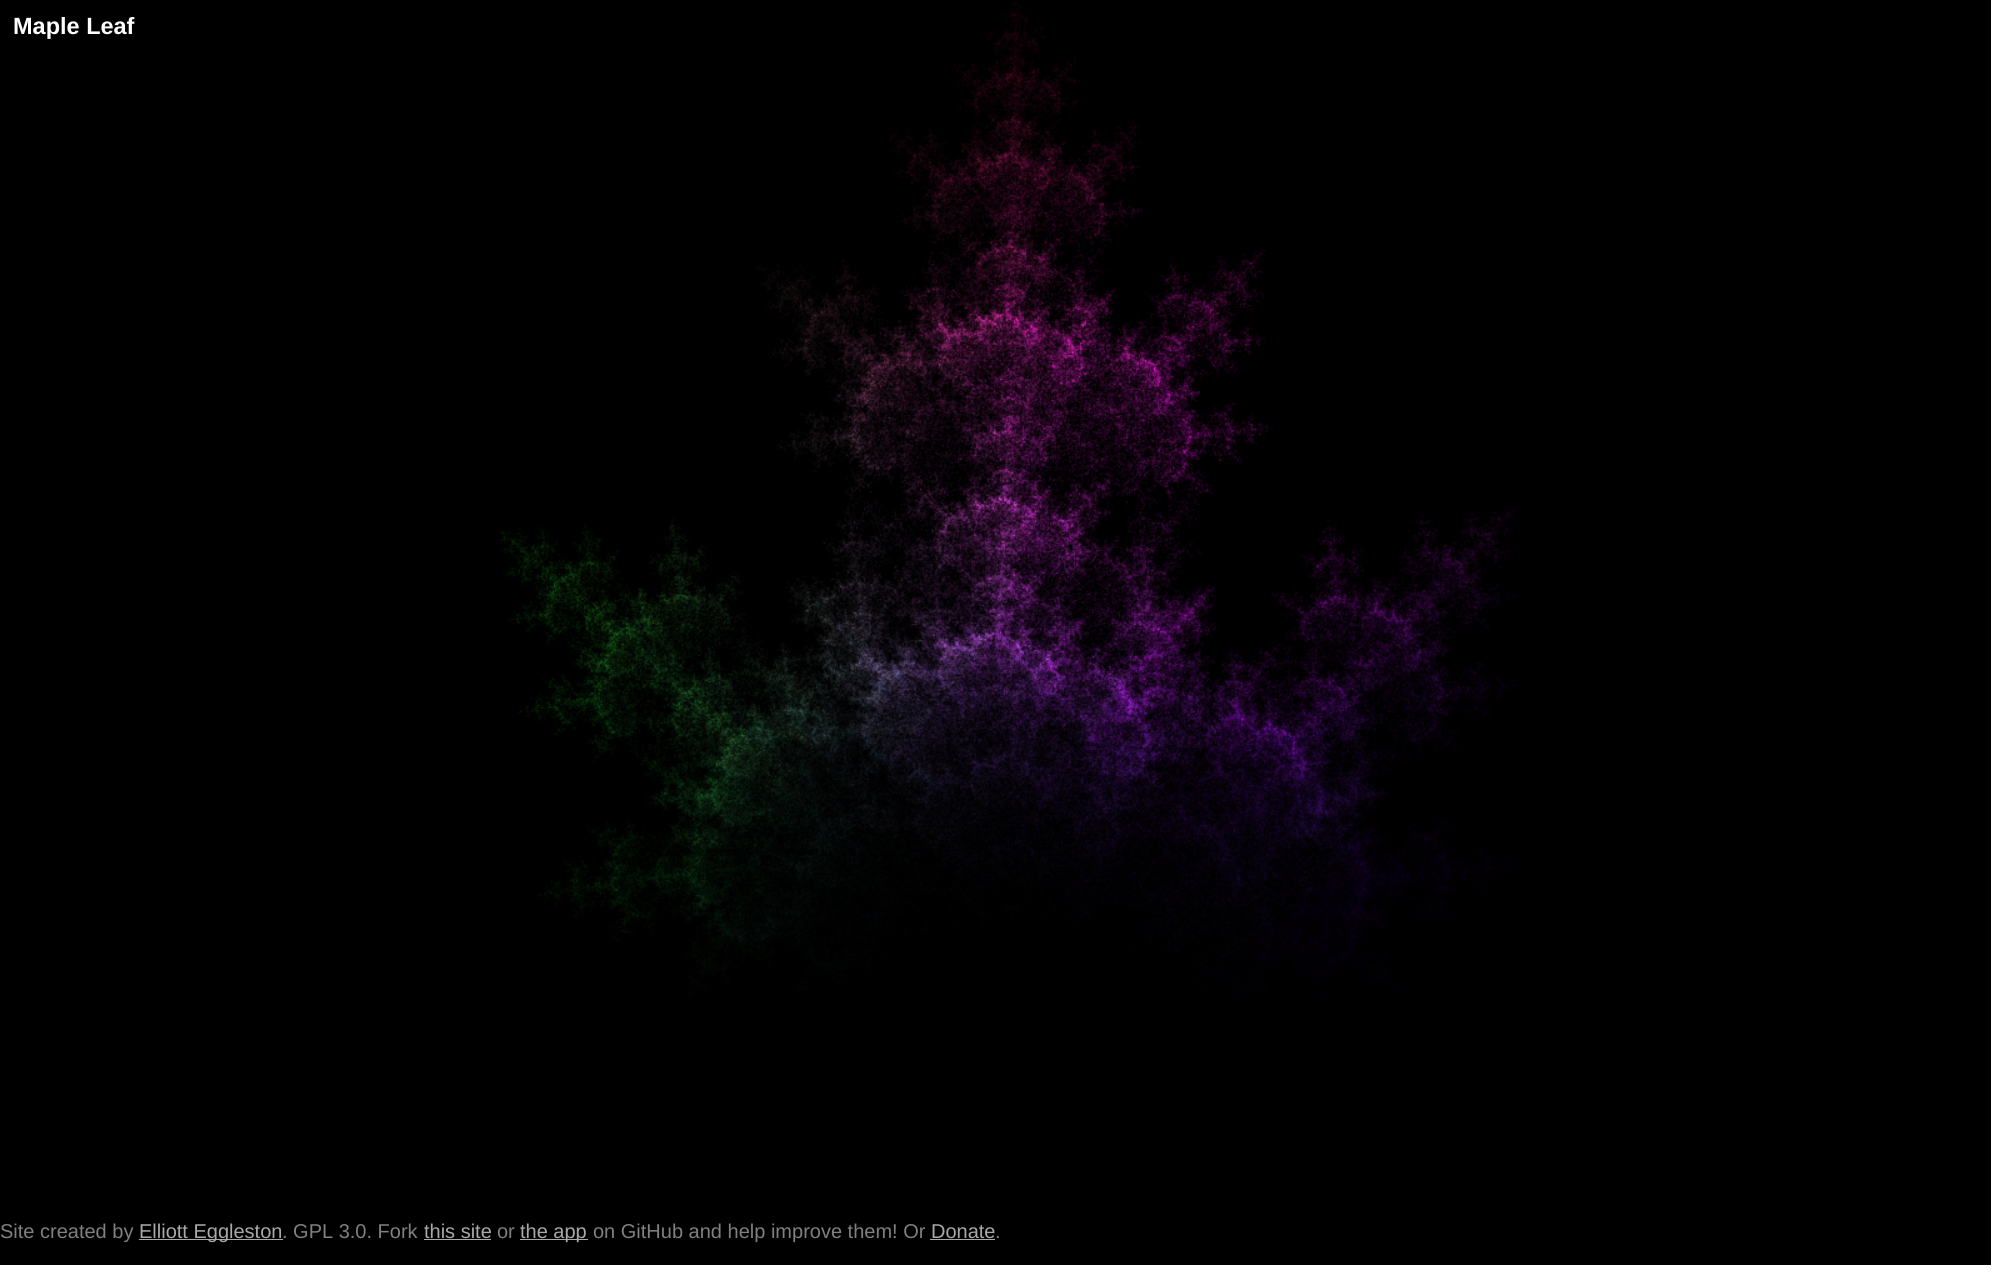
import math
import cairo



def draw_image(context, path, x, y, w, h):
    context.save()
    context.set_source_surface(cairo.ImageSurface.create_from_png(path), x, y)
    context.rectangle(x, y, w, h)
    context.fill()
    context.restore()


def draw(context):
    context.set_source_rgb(1, 1, 1)
    context.paint()
    draw_image(context, "images/1.png", 0, 0, 1991, 1265)
    context.set_source_rgb(169 / 255, 169 / 255, 169 / 255)
    context.rectangle(139, 1239, 144, 1)
    context.fill()
    context.rectangle(424, 1239, 67, 1)
    context.fill()
    context.rectangle(520, 1239, 68, 1)
    context.fill()
    context.rectangle(930, 1239, 65, 1)
    context.fill()
    context.select_font_face("Liberation Sans", cairo.FontSlant.NORMAL, cairo.FontWeight.BOLD)
    context.set_font_size(23.5)
    context.set_source_rgb(1, 1, 1)
    context.move_to(13, 34)
    context.show_text("Maple Leaf")
    context.select_font_face("Liberation Sans")
    context.set_font_size(20)
    context.set_source_rgb(128 / 255, 128 / 255, 128 / 255)
    context.move_to(0, 1238)
    context.show_text("Site created by")
    context.set_source_rgb(169 / 255, 169 / 255, 169 / 255)
    context.move_to(139, 1238)
    context.show_text("Elliott Eggleston")
    context.set_source_rgb(128 / 255, 128 / 255, 128 / 255)
    context.move_to(282, 1238)
    context.show_text(". GPL 3.0. Fork")
    context.set_source_rgb(169 / 255, 169 / 255, 169 / 255)
    context.move_to(424, 1238)
    context.show_text("this site")
    context.set_source_rgb(128 / 255, 128 / 255, 128 / 255)
    context.move_to(497, 1238)
    context.show_text("or")
    context.set_source_rgb(169 / 255, 169 / 255, 169 / 255)
    context.move_to(520, 1238)
    context.show_text("the app")
    context.set_source_rgb(128 / 255, 128 / 255, 128 / 255)
    context.move_to(593, 1238)
    context.show_text("on GitHub and help improve them! Or")
    context.set_source_rgb(169 / 255, 169 / 255, 169 / 255)
    context.move_to(931, 1238)
    context.show_text("Donate")
    context.set_source_rgb(128 / 255, 128 / 255, 128 / 255)
    context.move_to(995, 1238)
    context.show_text(".")


surface = cairo.ImageSurface(cairo.Format.RGB24, 2001, 1274)
context = cairo.Context(surface)
options = cairo.FontOptions()
options.set_hint_metrics(cairo.HintMetrics.OFF)
options.set_hint_style(cairo.HintStyle.NONE)
context.set_font_options(options)
context.set_miter_limit(4)
draw(context)
surface.write_to_png("out.png")
